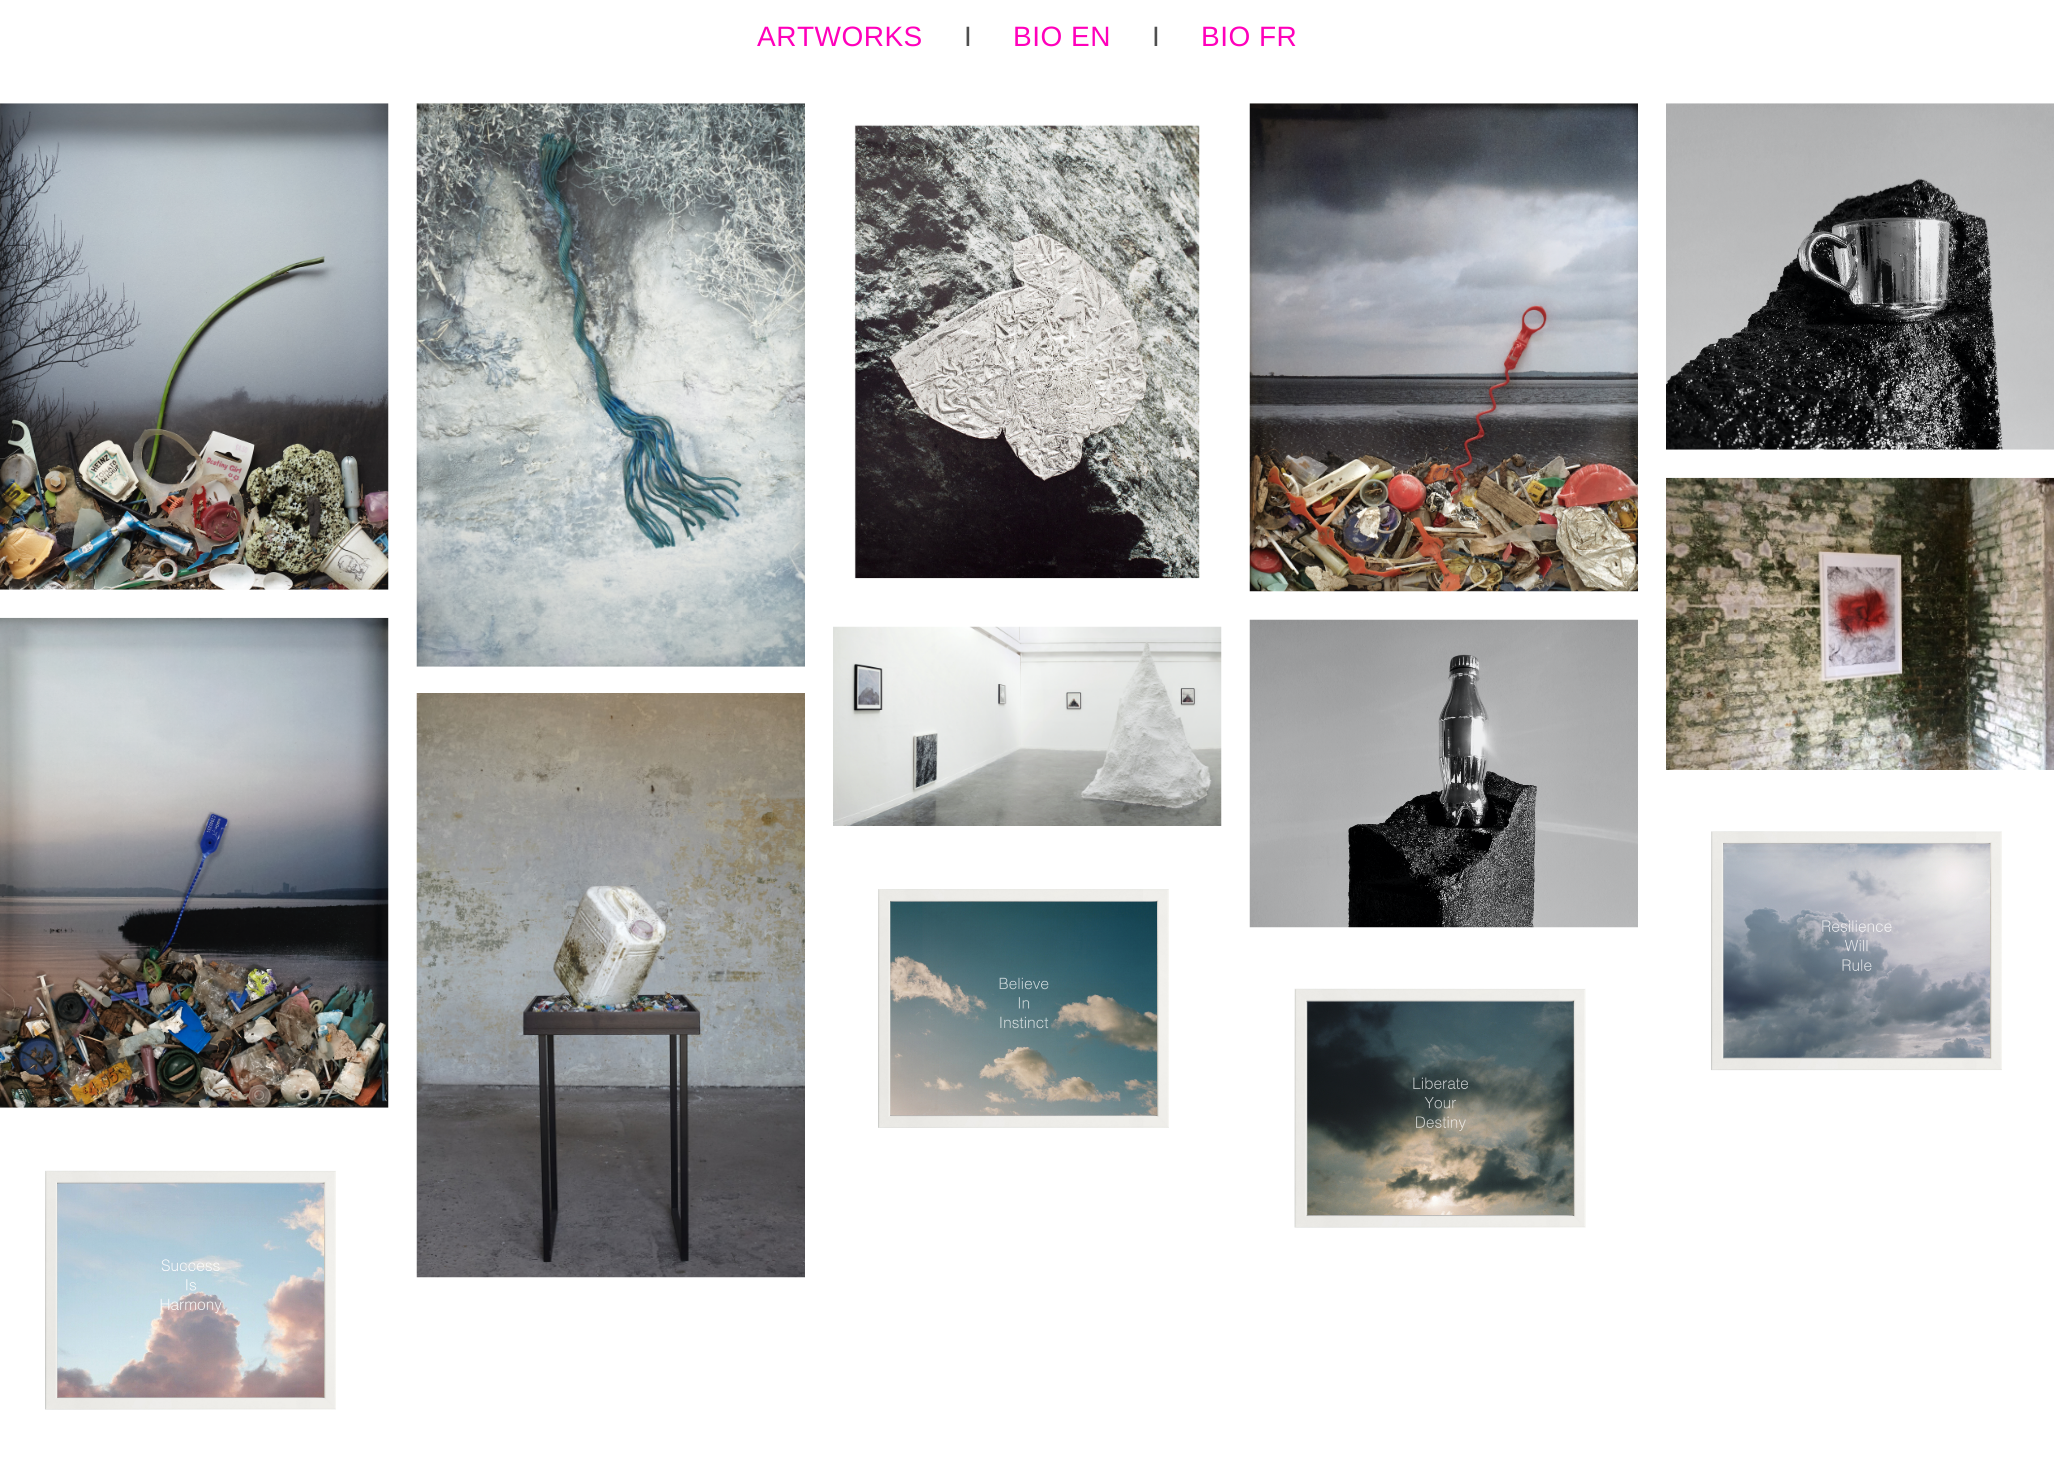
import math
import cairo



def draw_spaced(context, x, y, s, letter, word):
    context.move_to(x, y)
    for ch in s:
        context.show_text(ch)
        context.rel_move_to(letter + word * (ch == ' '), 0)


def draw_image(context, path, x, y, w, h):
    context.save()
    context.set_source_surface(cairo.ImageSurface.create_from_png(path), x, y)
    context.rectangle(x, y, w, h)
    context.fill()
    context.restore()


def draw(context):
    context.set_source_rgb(1, 1, 1)
    context.paint()
    draw_image(context, "images/1.png", 0, 103, 389, 487)
    draw_image(context, "images/2.png", 416, 103, 389, 564)
    draw_image(context, "images/3.png", 854, 124, 346, 455)
    draw_image(context, "images/4.png", 1249, 103, 389, 489)
    draw_image(context, "images/5.png", 1666, 103, 388, 347)
    draw_image(context, "images/6.png", 0, 617, 389, 491)
    draw_image(context, "images/7.png", 416, 693, 389, 585)
    draw_image(context, "images/8.png", 833, 626, 389, 200)
    draw_image(context, "images/9.png", 1249, 619, 389, 309)
    draw_image(context, "images/10.png", 1666, 477, 388, 293)
    draw_image(context, "images/11.png", 878, 889, 291, 239)
    draw_image(context, "images/12.png", 1294, 988, 292, 240)
    draw_image(context, "images/13.png", 1711, 831, 291, 240)
    draw_image(context, "images/14.png", 45, 1170, 291, 240)
    context.select_font_face("Liberation Sans")
    context.set_font_size(28)
    context.set_source_rgb(1, 0, 187 / 255)
    draw_spaced(context, 757, 46, "ARTWORKS", 0.5, 0)
    context.set_source_rgb(79 / 255, 79 / 255, 79 / 255)
    draw_spaced(context, 964, 46, "I", 0.5, 0)
    context.set_source_rgb(1, 0, 187 / 255)
    draw_spaced(context, 1013, 46, "BIO EN", 0.5, 0)
    context.set_source_rgb(79 / 255, 79 / 255, 79 / 255)
    draw_spaced(context, 1152, 46, "I", 0.5, 0)
    context.set_source_rgb(1, 0, 187 / 255)
    draw_spaced(context, 1201, 46, "BIO FR", 0.5, 0)


surface = cairo.ImageSurface(cairo.Format.RGB24, 2054, 1474)
context = cairo.Context(surface)
options = cairo.FontOptions()
options.set_hint_metrics(cairo.HintMetrics.OFF)
options.set_hint_style(cairo.HintStyle.NONE)
context.set_font_options(options)
context.set_miter_limit(4)
draw(context)
surface.write_to_png("out.png")
